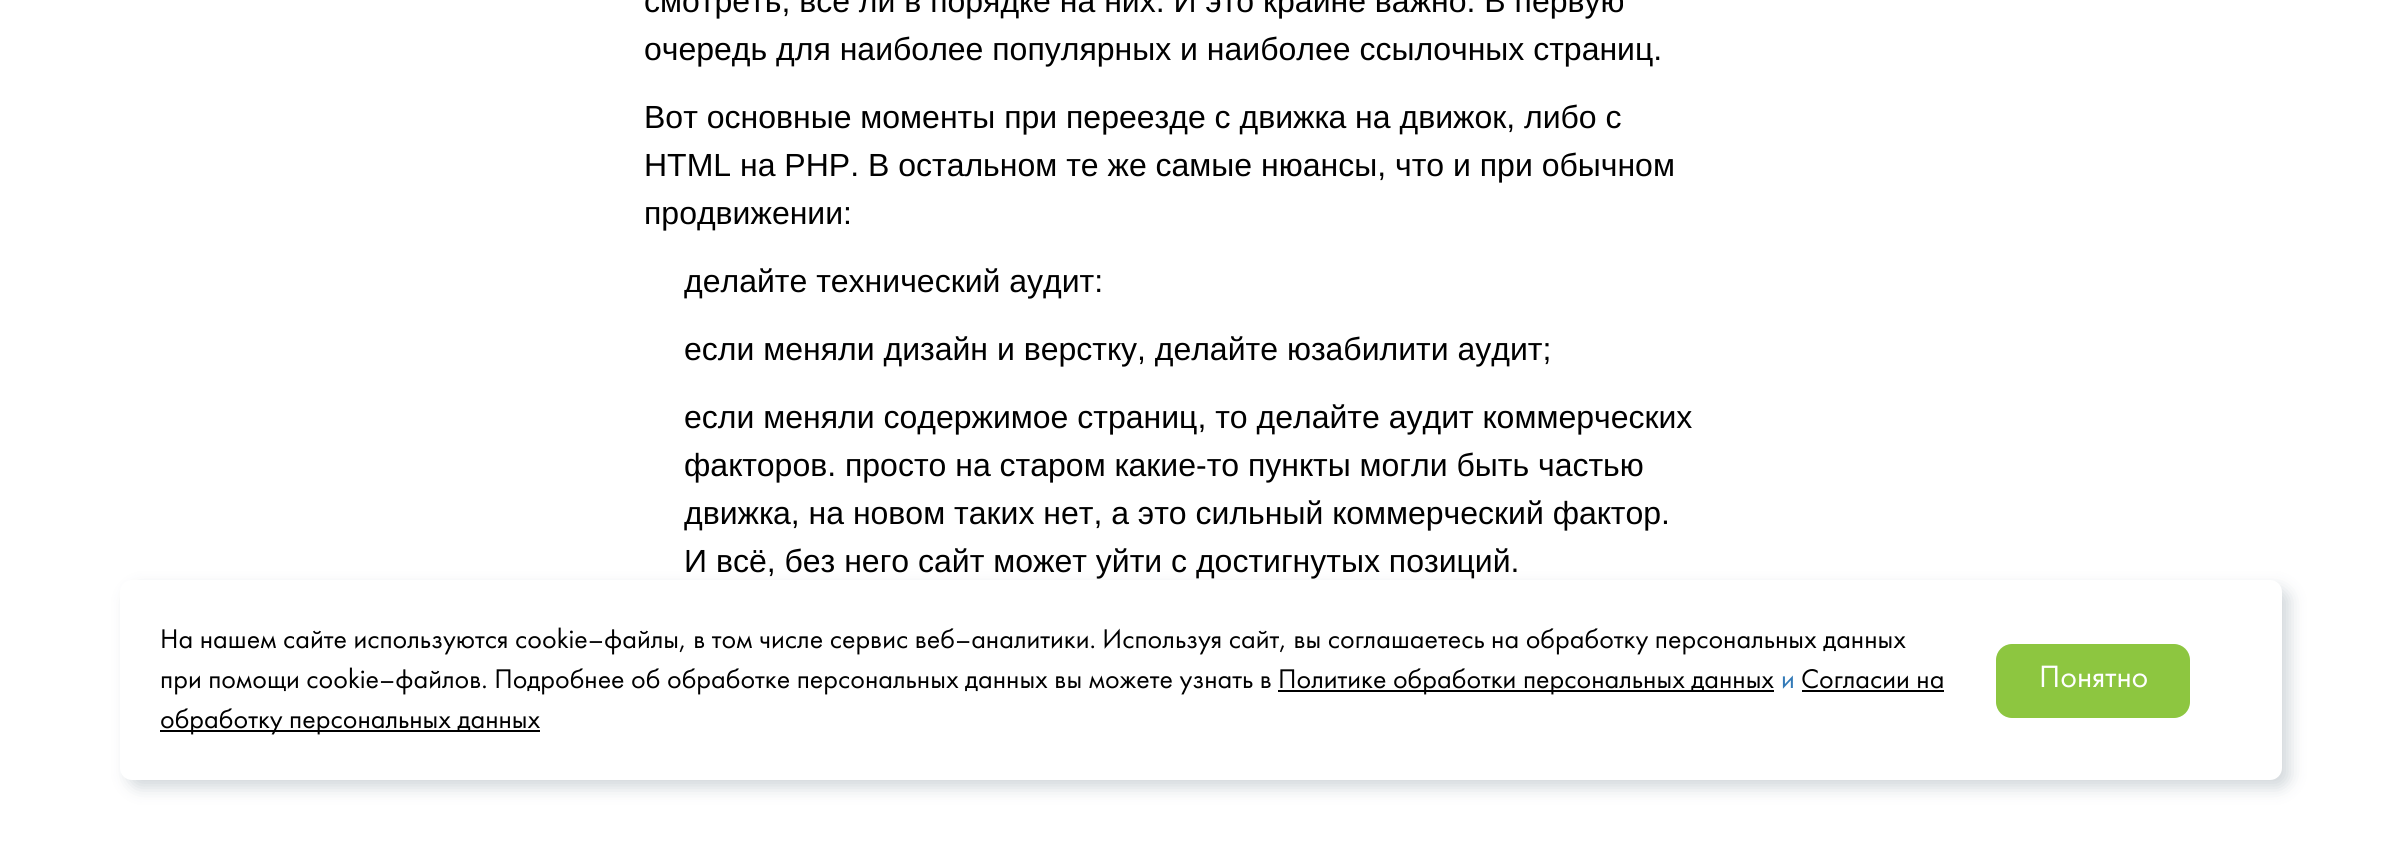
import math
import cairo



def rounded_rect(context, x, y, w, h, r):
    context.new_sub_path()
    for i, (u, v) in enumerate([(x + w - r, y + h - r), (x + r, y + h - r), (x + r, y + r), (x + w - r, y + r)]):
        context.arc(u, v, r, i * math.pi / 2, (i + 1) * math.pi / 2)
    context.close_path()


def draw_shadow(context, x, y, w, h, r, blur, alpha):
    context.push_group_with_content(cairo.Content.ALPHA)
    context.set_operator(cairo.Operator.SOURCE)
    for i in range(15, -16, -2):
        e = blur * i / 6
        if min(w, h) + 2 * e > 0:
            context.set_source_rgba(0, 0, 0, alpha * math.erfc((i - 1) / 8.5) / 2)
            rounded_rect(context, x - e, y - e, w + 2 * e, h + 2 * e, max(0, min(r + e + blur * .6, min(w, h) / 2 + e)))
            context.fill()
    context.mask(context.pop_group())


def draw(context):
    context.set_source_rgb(1, 1, 1)
    context.paint()
    context.set_source_rgb(34 / 255, 60 / 255, 80 / 255)
    draw_shadow(context, 128, 588, 2162, 200, 12, 8, 0.2)
    context.set_source_rgb(1, 1, 1)
    rounded_rect(context, 120, 580, 2162, 200, 12)
    context.fill()
    context.set_source_rgb(0, 0, 0)
    context.rectangle(1278, 690, 496, 2)
    context.fill()
    context.rectangle(1802, 690, 142, 2)
    context.fill()
    context.rectangle(160, 730, 380, 2)
    context.fill()
    context.set_source_rgb(141 / 255, 198 / 255, 64 / 255)
    rounded_rect(context, 1997, 645, 192, 72, 15)
    context.fill_preserve()
    context.stroke()
    context.select_font_face("Liberation Sans")
    context.set_font_size(32)
    context.set_source_rgb(0, 0, 0)
    context.move_to(644, 12)
    context.show_text("смотреть, всё ли в порядке на них. И это крайне важно. В первую")
    context.move_to(644, 60)
    context.show_text("очередь для наиболее популярных и наиболее ссылочных страниц.")
    context.move_to(644, 128)
    context.show_text("Вот основные моменты при переезде с движка на движок, либо с")
    context.move_to(644, 176)
    context.show_text("HTML на PHP. В остальном те же самые нюансы, что и при обычном")
    context.move_to(644, 224)
    context.show_text("продвижении:")
    context.move_to(684, 292)
    context.show_text("делайте технический аудит:")
    context.move_to(684, 360)
    context.show_text("если меняли дизайн и верстку, делайте юзабилити аудит;")
    context.move_to(684, 428)
    context.show_text("если меняли содержимое страниц, то делайте аудит коммерческих")
    context.move_to(684, 476)
    context.show_text("факторов. просто на старом какие-то пункты могли быть частью")
    context.move_to(684, 524)
    context.show_text("движка, на новом таких нет, а это сильный коммерческий фактор.")
    context.move_to(684, 572)
    context.show_text("И всё, без него сайт может уйти с достигнутых позиций.")
    context.select_font_face("Futura PT")
    context.set_font_size(28)
    context.move_to(160, 648)
    context.show_text("На нашем сайте используются cookie–файлы, в том числе сервис веб–аналитики. Используя сайт, вы соглашаетесь на обработку персональных данных")
    context.move_to(160, 688)
    context.show_text("при помощи cookie–файлов. Подробнее об обработке персональных данных вы можете узнать в")
    context.move_to(1278, 688)
    context.show_text("Политике обработки персональных данных")
    context.set_source_rgb(51 / 255, 122 / 255, 183 / 255)
    context.move_to(1781, 688)
    context.show_text("и")
    context.set_source_rgb(0, 0, 0)
    context.move_to(1801, 688)
    context.show_text("Согласии на")
    context.move_to(160, 728)
    context.show_text("обработку персональных данных")
    context.set_font_size(32)
    context.set_source_rgb(1, 1, 1)
    context.move_to(2039, 687)
    context.show_text("Понятно")


surface = cairo.ImageSurface(cairo.Format.RGB24, 2402, 859)
context = cairo.Context(surface)
options = cairo.FontOptions()
options.set_hint_metrics(cairo.HintMetrics.OFF)
options.set_hint_style(cairo.HintStyle.NONE)
context.set_font_options(options)
context.set_miter_limit(4)
draw(context)
surface.write_to_png("out.png")
